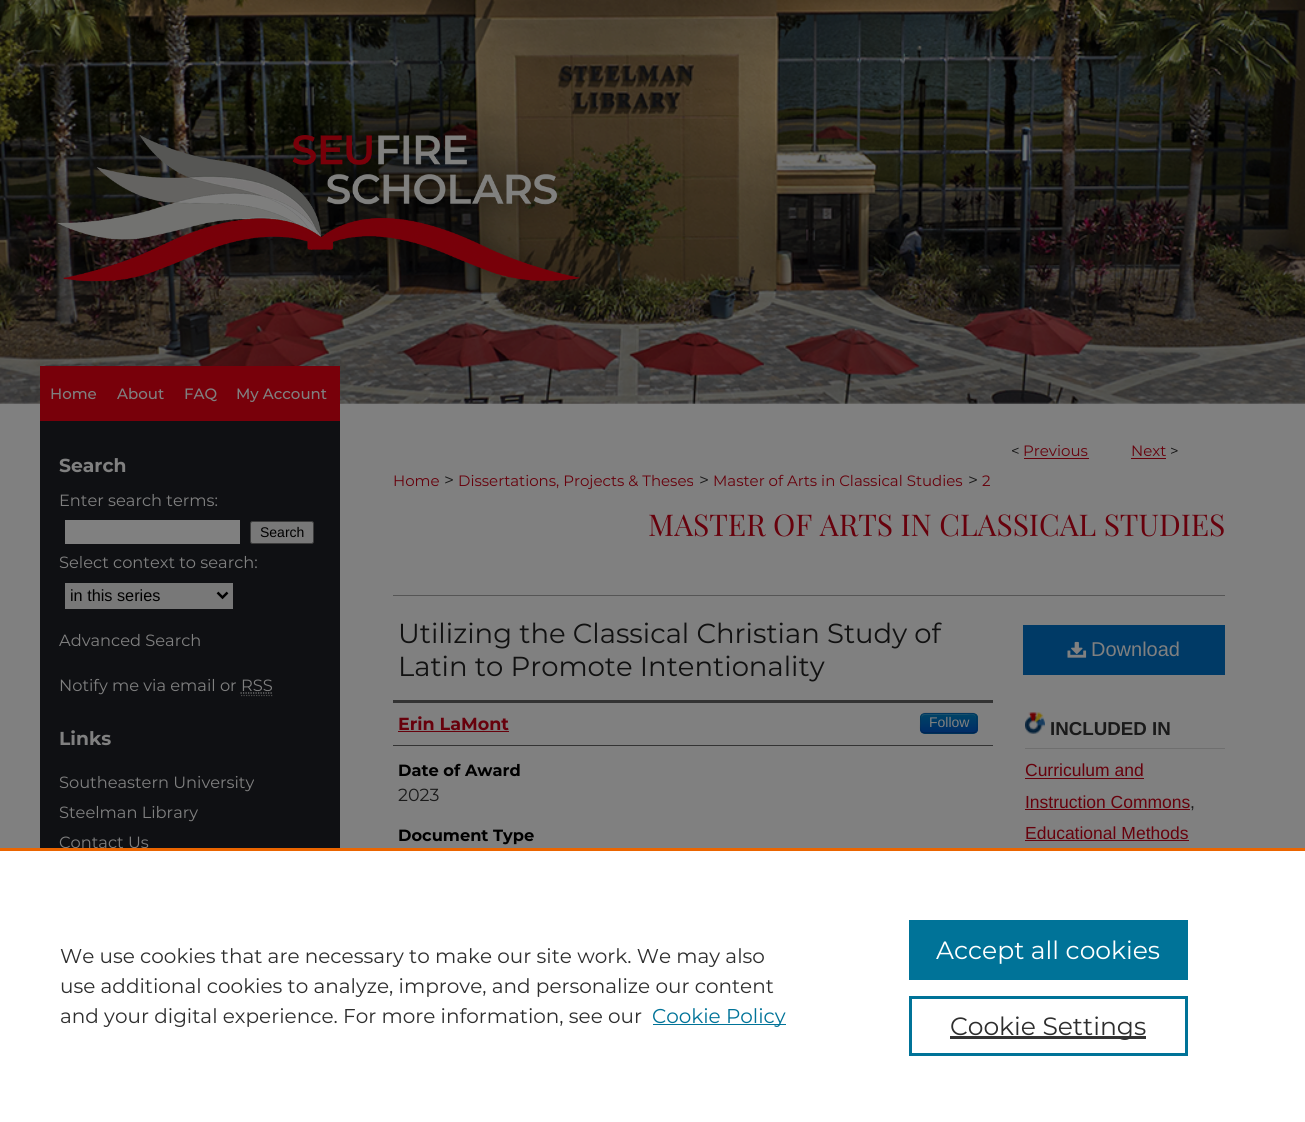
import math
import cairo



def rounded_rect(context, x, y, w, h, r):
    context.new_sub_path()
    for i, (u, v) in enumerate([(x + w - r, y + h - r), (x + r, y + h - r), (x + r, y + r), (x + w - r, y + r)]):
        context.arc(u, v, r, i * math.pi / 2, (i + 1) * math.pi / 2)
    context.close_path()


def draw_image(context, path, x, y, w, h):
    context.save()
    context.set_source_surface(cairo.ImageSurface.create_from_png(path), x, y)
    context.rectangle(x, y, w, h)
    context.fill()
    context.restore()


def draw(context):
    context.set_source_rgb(128 / 255, 128 / 255, 128 / 255)
    context.paint()
    draw_image(context, "images/1.png", 0, 0, 1305, 404)
    draw_image(context, "images/2.png", 57, 125, 523, 173)
    context.set_source_rgb(120 / 255, 0, 10 / 255)
    context.rectangle(40, 366, 300, 55)
    context.fill()
    context.set_source_rgb(15 / 255, 16 / 255, 19 / 255)
    context.rectangle(40, 421, 300, 427)
    context.fill()
    context.set_source_rgb(128 / 255, 128 / 255, 128 / 255)
    context.rectangle(65, 520, 175, 24)
    context.fill()
    context.set_source_rgb(120 / 255, 120 / 255, 120 / 255)
    rounded_rect(context, 250.5, 521.5, 63, 22, 2)
    context.fill_preserve()
    context.set_source_rgb(59 / 255, 59 / 255, 59 / 255)
    context.set_line_width(1)
    context.stroke()
    context.set_source_rgb(120 / 255, 120 / 255, 120 / 255)
    context.rectangle(65, 583, 168, 26)
    context.fill()
    context.new_path()
    context.move_to(217.5, 592.5)
    context.line_to(222.5, 597.5)
    context.line_to(227.5, 592.5)
    context.set_source_rgb(0, 0, 0)
    context.set_line_width(2.5)
    context.stroke()
    context.new_path()
    context.move_to(240.5, 693)
    context.line_to(272.5, 693)
    context.set_source_rgb(128 / 255, 128 / 255, 128 / 255)
    context.set_line_width(1.2)
    context.set_dash([1.25, 1.25])
    context.stroke()
    context.set_source_rgb(103 / 255, 1 / 255, 12 / 255)
    context.rectangle(1024, 458, 65, 1)
    context.fill()
    context.rectangle(1131, 458, 35, 1)
    context.fill()
    context.set_source_rgb(85 / 255, 85 / 255, 85 / 255)
    context.rectangle(393, 595, 832, 1)
    context.fill()
    context.set_source_rgb(51 / 255, 51 / 255, 51 / 255)
    context.rectangle(393, 700, 600, 3)
    context.fill()
    context.rectangle(393, 745, 600, 1)
    context.fill()
    context.set_source_rgb(103 / 255, 1 / 255, 12 / 255)
    context.rectangle(398, 731, 111, 1)
    context.fill()
    context.set_source_rgb(0, 58 / 255, 102 / 255)
    rounded_rect(context, 920, 713, 58, 21, 5)
    context.fill()
    context.save()
    rounded_rect(context, 920, 713, 58, 21, 5)
    context.clip()
    gradient = cairo.LinearGradient(949, 714, 949, 733)
    gradient.add_color_stop_rgba(0, 0, 68 / 255, 102 / 255, 1)
    gradient.add_color_stop_rgba(1, 0, 43 / 255, 102 / 255, 1)
    context.set_source(gradient)
    context.rectangle(920, 714, 58, 19)
    context.fill()
    context.restore()
    context.set_source_rgba(128 / 255, 128 / 255, 128 / 255, 0.2)
    context.new_path()
    context.move_to(925, 715)
    context.line_to(967, 715)
    context.curve_to(973, 714, 976, 714, 976, 721)
    context.line_to(976, 730)
    context.line_to(976, 722)
    context.curve_to(976, 712, 974, 714, 964, 714)
    context.line_to(933, 714)
    context.curve_to(923, 714, 921, 712, 921, 722)
    context.line_to(921, 731)
    context.curve_to(921, 727, 919, 715, 925, 715)
    context.close_path()
    context.fill()
    context.new_path()
    context.move_to(975.5, 732)
    context.curve_to(975, 732.5, 973.5, 733, 972.5, 733)
    context.line_to(925, 733)
    context.curve_to(924, 733, 922.5, 732.5, 922, 732)
    context.set_source_rgba(0, 0, 0, 0.25)
    context.set_dash([])
    context.stroke()
    context.new_path()
    context.move_to(922, 732)
    context.curve_to(919.5, 729.5, 920.5, 726, 920.5, 723)
    context.curve_to(920.5, 712, 921.5, 713, 933, 713)
    context.line_to(964.5, 713)
    context.curve_to(976, 713, 977, 712, 977, 723)
    context.curve_to(977, 726, 978, 729.5, 975.5, 732)
    context.set_source_rgba(0, 0, 0, 0.1)
    context.stroke()
    context.set_source_rgb(0, 58 / 255, 102 / 255)
    context.rectangle(1023, 625, 202, 50)
    context.fill()
    draw_image(context, "images/3.png", 1067, 641, 20, 17)
    draw_image(context, "images/4.png", 1025, 712, 20, 22)
    context.set_source_rgb(111 / 255, 111 / 255, 111 / 255)
    context.rectangle(1025, 748, 200, 1)
    context.fill()
    context.set_source_rgb(103 / 255, 1 / 255, 12 / 255)
    context.rectangle(1025, 778, 119, 1)
    context.fill()
    context.rectangle(1025, 809, 165, 1)
    context.fill()
    context.rectangle(1025, 840, 164, 1)
    context.fill()
    context.set_source_rgb(1, 1, 1)
    context.rectangle(0, 851, 1305, 271)
    context.fill()
    context.set_source_rgb(0, 115 / 255, 152 / 255)
    context.rectangle(653, 1024, 133, 1)
    context.fill()
    context.rectangle(909, 920, 279, 60)
    context.fill()
    context.rectangle(910.5, 997.5, 276, 57)
    context.set_line_width(3)
    context.stroke()
    context.set_source_rgb(51 / 255, 51 / 255, 51 / 255)
    context.rectangle(950, 1036, 196, 3)
    context.fill()
    context.select_font_face("Montserrat Medium")
    context.set_font_size(15)
    context.set_source_rgb(128 / 255, 128 / 255, 128 / 255)
    context.move_to(50, 399)
    context.show_text("Home")
    context.move_to(117, 399)
    context.show_text("About")
    context.move_to(184, 399)
    context.show_text("FAQ")
    context.move_to(236, 399)
    context.show_text("My Account")
    context.select_font_face("Montserrat", cairo.FontSlant.NORMAL, cairo.FontWeight.BOLD)
    context.set_font_size(18.75)
    context.move_to(59, 472)
    context.show_text("Search")
    context.select_font_face("Montserrat")
    context.set_font_size(16.25)
    context.move_to(59, 506)
    context.show_text("Enter search terms:")
    context.select_font_face("Liberation Sans")
    context.set_font_size(14)
    context.set_source_rgb(0, 0, 0)
    context.move_to(260, 537)
    context.show_text("Search")
    context.select_font_face("Montserrat")
    context.set_font_size(16.25)
    context.set_source_rgb(128 / 255, 128 / 255, 128 / 255)
    context.move_to(59, 568)
    context.show_text("Select context to search:")
    context.select_font_face("Liberation Sans")
    context.set_source_rgb(0, 0, 0)
    context.move_to(70, 601)
    context.show_text("in this series")
    context.select_font_face("Montserrat")
    context.set_source_rgb(128 / 255, 128 / 255, 128 / 255)
    context.move_to(59, 646)
    context.show_text("Advanced Search")
    context.move_to(59, 691)
    context.show_text("Notify me via email or RSS")
    context.new_path()
    context.move_to(241, 695.5)
    context.line_to(272.5, 695.5)
    context.set_source_rgb(77 / 255, 77 / 255, 77 / 255)
    context.set_line_width(1.2)
    context.set_dash([1.25, 1.25])
    context.stroke()
    context.select_font_face("Montserrat", cairo.FontSlant.NORMAL, cairo.FontWeight.BOLD)
    context.set_font_size(18.75)
    context.set_source_rgb(128 / 255, 128 / 255, 128 / 255)
    context.move_to(59, 745)
    context.show_text("Links")
    context.select_font_face("Montserrat")
    context.set_font_size(16.25)
    context.move_to(59, 788)
    context.show_text("Southeastern University")
    context.move_to(59, 818)
    context.show_text("Steelman Library")
    context.move_to(59, 848)
    context.show_text("Contact Us")
    context.set_font_size(15)
    context.set_source_rgb(17 / 255, 17 / 255, 17 / 255)
    context.move_to(1011, 456)
    context.show_text("<")
    context.set_source_rgb(103 / 255, 1 / 255, 12 / 255)
    context.move_to(1023, 456)
    context.show_text("Previous")
    context.move_to(1131, 456)
    context.show_text("Next")
    context.set_source_rgb(17 / 255, 17 / 255, 17 / 255)
    context.move_to(1170, 456)
    context.show_text(">")
    context.set_source_rgb(103 / 255, 1 / 255, 12 / 255)
    context.move_to(393, 486)
    context.show_text("Home")
    context.set_font_size(17.5)
    context.set_source_rgb(26 / 255, 26 / 255, 26 / 255)
    context.move_to(444, 486)
    context.show_text(">")
    context.set_font_size(15)
    context.set_source_rgb(103 / 255, 1 / 255, 12 / 255)
    context.move_to(458, 486)
    context.show_text("Dissertations, Projects & Theses")
    context.set_font_size(17.5)
    context.set_source_rgb(26 / 255, 26 / 255, 26 / 255)
    context.move_to(699, 486)
    context.show_text(">")
    context.set_font_size(15)
    context.set_source_rgb(103 / 255, 1 / 255, 12 / 255)
    context.move_to(713, 486)
    context.show_text("Master of Arts in Classical Studies")
    context.set_font_size(17.5)
    context.set_source_rgb(26 / 255, 26 / 255, 26 / 255)
    context.move_to(968, 486)
    context.show_text(">")
    context.set_font_size(15)
    context.set_source_rgb(103 / 255, 1 / 255, 12 / 255)
    context.move_to(982, 486)
    context.show_text("2")
    context.select_font_face("Playfair Display")
    context.set_font_size(30)
    context.move_to(648, 536)
    context.show_text("MASTER OF ARTS IN CLASSICAL STUDIES")
    context.select_font_face("Montserrat")
    context.set_font_size(27.5)
    context.set_source_rgb(17 / 255, 17 / 255, 17 / 255)
    context.move_to(398, 643)
    context.show_text("Utilizing the Classical Christian Study of")
    context.move_to(398, 676)
    context.show_text("Latin to Promote Intentionality")
    context.select_font_face("Montserrat", cairo.FontSlant.NORMAL, cairo.FontWeight.BOLD)
    context.set_font_size(17.5)
    context.set_source_rgb(103 / 255, 1 / 255, 12 / 255)
    context.move_to(398, 730)
    context.show_text("Erin LaMont")
    context.select_font_face("Liberation Sans")
    context.set_font_size(14)
    context.set_source_rgb(128 / 255, 128 / 255, 128 / 255)
    context.move_to(929, 727)
    context.show_text("Follow")
    context.select_font_face("Montserrat", cairo.FontSlant.NORMAL, cairo.FontWeight.BOLD)
    context.set_font_size(16.25)
    context.set_source_rgb(0, 0, 0)
    context.move_to(398, 776)
    context.show_text("Date of Award")
    context.select_font_face("Montserrat")
    context.set_font_size(17.5)
    context.set_source_rgb(26 / 255, 26 / 255, 26 / 255)
    context.move_to(398, 801)
    context.show_text("2023")
    context.select_font_face("Montserrat", cairo.FontSlant.NORMAL, cairo.FontWeight.BOLD)
    context.set_font_size(16.25)
    context.set_source_rgb(0, 0, 0)
    context.move_to(398, 841)
    context.show_text("Document Type")
    context.select_font_face("Liberation Sans")
    context.set_font_size(20)
    context.set_source_rgb(128 / 255, 128 / 255, 128 / 255)
    context.move_to(1091, 656)
    context.show_text("Download")
    context.select_font_face("Liberation Sans", cairo.FontSlant.NORMAL, cairo.FontWeight.BOLD)
    context.set_font_size(18.75)
    context.set_source_rgb(26 / 255, 26 / 255, 26 / 255)
    context.move_to(1050, 735)
    context.show_text("INCLUDED IN")
    context.select_font_face("Liberation Sans")
    context.set_font_size(17.5)
    context.set_source_rgb(103 / 255, 1 / 255, 12 / 255)
    context.move_to(1025, 776)
    context.show_text("Curriculum and")
    context.move_to(1025, 808)
    context.show_text("Instruction Commons")
    context.set_source_rgb(26 / 255, 26 / 255, 26 / 255)
    context.move_to(1190, 808)
    context.show_text(",")
    context.set_source_rgb(103 / 255, 1 / 255, 12 / 255)
    context.move_to(1025, 839)
    context.show_text("Educational Methods")
    context.set_source_rgb(235 / 255, 101 / 255, 0)
    context.rectangle(0, 848, 1305, 3)
    context.fill()
    context.select_font_face("Montserrat")
    context.set_font_size(20)
    context.set_source_rgb(46 / 255, 46 / 255, 46 / 255)
    context.move_to(60, 963)
    context.show_text("We use cookies that are necessary to make our site work. We may also")
    context.move_to(60, 993)
    context.show_text("use additional cookies to analyze, improve, and personalize our content")
    context.move_to(60, 1023)
    context.show_text("and your digital experience. For more information, see our")
    context.set_source_rgb(0, 115 / 255, 152 / 255)
    context.move_to(652, 1023)
    context.show_text("Cookie Policy")
    context.set_font_size(25)
    context.set_source_rgb(1, 1, 1)
    context.move_to(936, 959)
    context.show_text("Accept all cookies")
    context.set_source_rgb(46 / 255, 46 / 255, 46 / 255)
    context.move_to(950, 1035)
    context.show_text("Cookie Settings")


surface = cairo.ImageSurface(cairo.Format.RGB24, 1305, 1122)
context = cairo.Context(surface)
options = cairo.FontOptions()
options.set_hint_metrics(cairo.HintMetrics.OFF)
options.set_hint_style(cairo.HintStyle.NONE)
context.set_font_options(options)
context.set_miter_limit(4)
draw(context)
surface.write_to_png("out.png")
